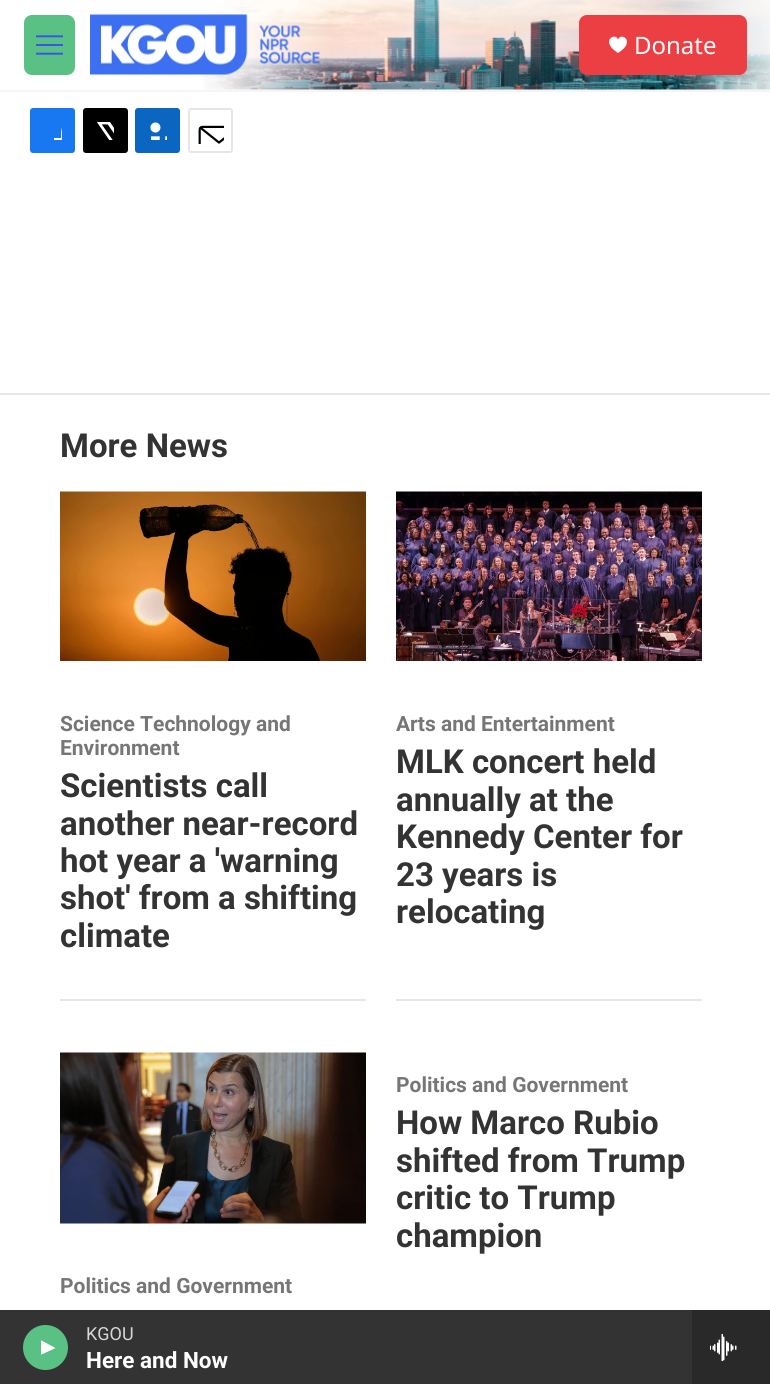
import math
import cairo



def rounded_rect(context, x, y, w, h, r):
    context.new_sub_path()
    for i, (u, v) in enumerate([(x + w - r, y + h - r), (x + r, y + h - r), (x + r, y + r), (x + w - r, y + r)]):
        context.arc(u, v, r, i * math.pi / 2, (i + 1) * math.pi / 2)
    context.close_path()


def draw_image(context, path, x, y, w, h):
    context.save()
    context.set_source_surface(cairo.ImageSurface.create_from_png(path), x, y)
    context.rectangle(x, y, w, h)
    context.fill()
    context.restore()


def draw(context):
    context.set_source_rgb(1, 1, 1)
    context.paint()
    context.set_source_rgb(245 / 255, 245 / 255, 245 / 255)
    context.rectangle(0, 90, 770, 2)
    context.fill()
    draw_image(context, "images/1.png", 203, 0, 567, 90)
    context.set_source_rgb(89 / 255, 193 / 255, 131 / 255)
    rounded_rect(context, 24, 15, 51, 60, 8)
    context.fill()
    draw_image(context, "images/2.png", 36, 35, 27, 20)
    draw_image(context, "images/3.png", 90, 14, 230, 61)
    context.set_source_rgb(235 / 255, 63 / 255, 67 / 255)
    rounded_rect(context, 579, 15, 168, 60, 8)
    context.fill()
    context.set_source_rgb(1, 1, 1)
    context.new_path()
    context.move_to(618, 39.5)
    context.curve_to(615, 31.5, 599.5, 41.5, 618, 53)
    context.curve_to(636.5, 41.5, 621, 31.5, 618, 39.5)
    context.close_path()
    context.fill()
    context.set_source_rgb(51 / 255, 51 / 255, 51 / 255)
    context.rectangle(0, 1310, 692, 74)
    context.fill()
    context.set_source_rgb(89 / 255, 193 / 255, 131 / 255)
    context.arc(45.5, 1347.5, 22.5, 0, 2 * math.pi)
    context.fill()
    context.save()
    context.rectangle(41, 1340, 15, 16)
    context.clip()
    context.set_source_rgb(1, 1, 1)
    context.new_path()
    context.move_to(40.5, 1340)
    context.line_to(55.5, 1348)
    context.line_to(40.5, 1355)
    context.close_path()
    context.fill()
    context.restore()
    context.set_source_rgb(41 / 255, 41 / 255, 41 / 255)
    context.rectangle(692, 1310, 78, 74)
    context.fill()
    draw_image(context, "images/4.png", 710, 1334, 27, 27)
    context.set_source_rgb(23 / 255, 120 / 255, 242 / 255)
    rounded_rect(context, 30, 108, 45, 45, 3)
    context.fill()
    context.save()
    context.rectangle(44, 122, 18, 18)
    context.clip()
    context.set_source_rgb(1, 1, 1)
    context.new_path()
    context.move_to(68, 153)
    context.line_to(61, 153)
    context.line_to(61, 146)
    context.line_to(54, 146)
    context.line_to(54, 138)
    context.line_to(61, 138)
    context.curve_to(61, 126.5, 62, 120.5, 75, 122)
    context.line_to(75, 129)
    context.curve_to(67, 129, 68, 131.5, 68, 138)
    context.line_to(75, 138)
    context.line_to(74, 146)
    context.line_to(68, 146)
    context.close_path()
    context.fill()
    context.restore()
    context.set_source_rgb(0, 0, 0)
    rounded_rect(context, 83, 108, 45, 45, 3)
    context.fill()
    draw_image(context, "images/5.png", 97, 122, 17, 18)
    context.set_source_rgb(10 / 255, 102 / 255, 193 / 255)
    rounded_rect(context, 135, 108, 45, 45, 3)
    context.fill()
    draw_image(context, "images/6.png", 150, 122, 17, 18)
    rounded_rect(context, 189, 109, 43, 43, 2)
    context.set_source_rgb(230 / 255, 230 / 255, 230 / 255)
    context.stroke()
    draw_image(context, "images/7.png", 198, 125, 26, 19)
    context.rectangle(0, 393, 770, 2)
    context.fill()
    context.rectangle(60, 999, 306, 2)
    context.fill()
    draw_image(context, "images/8.png", 60, 491, 306, 170)
    context.rectangle(396, 999, 306, 2)
    context.fill()
    draw_image(context, "images/9.png", 396, 491, 306, 170)
    draw_image(context, "images/10.png", 60, 1052, 306, 172)
    context.select_font_face("Noto Sans")
    context.set_font_size(24)
    context.set_source_rgb(1, 1, 1)
    context.move_to(634, 54)
    context.show_text("Donate")
    context.select_font_face("Roboto")
    context.set_font_size(18)
    context.set_source_rgb(214 / 255, 214 / 255, 214 / 255)
    context.move_to(86, 1340)
    context.show_text("KGOU")
    context.select_font_face("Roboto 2", cairo.FontSlant.NORMAL, cairo.FontWeight.BOLD)
    context.set_font_size(22.5)
    context.set_source_rgb(1, 1, 1)
    context.move_to(86, 1368)
    context.show_text("Here and Now")
    context.select_font_face("Roboto", cairo.FontSlant.NORMAL, cairo.FontWeight.BOLD)
    context.set_font_size(33)
    context.set_source_rgb(51 / 255, 51 / 255, 51 / 255)
    context.move_to(60, 457)
    context.show_text("More News")
    context.set_font_size(21)
    context.set_source_rgb(118 / 255, 118 / 255, 118 / 255)
    context.move_to(60, 731)
    context.show_text("Science Technology and")
    context.move_to(60, 755)
    context.show_text("Environment")
    context.set_font_size(33)
    context.set_source_rgb(51 / 255, 51 / 255, 51 / 255)
    context.move_to(60, 797)
    context.show_text("Scientists call")
    context.move_to(60, 835)
    context.show_text("another near-record")
    context.move_to(60, 872)
    context.show_text("hot year a 'warning")
    context.move_to(60, 909)
    context.show_text("shot' from a shifting")
    context.move_to(60, 947)
    context.show_text("climate")
    context.set_font_size(21)
    context.set_source_rgb(118 / 255, 118 / 255, 118 / 255)
    context.move_to(396, 731)
    context.show_text("Arts and Entertainment")
    context.set_font_size(33)
    context.set_source_rgb(51 / 255, 51 / 255, 51 / 255)
    context.move_to(396, 773)
    context.show_text("MLK concert held")
    context.move_to(396, 811)
    context.show_text("annually at the")
    context.move_to(396, 848)
    context.show_text("Kennedy Center for")
    context.move_to(396, 886)
    context.show_text("23 years is")
    context.move_to(396, 923)
    context.show_text("relocating")
    context.set_font_size(21)
    context.set_source_rgb(118 / 255, 118 / 255, 118 / 255)
    context.move_to(396, 1092)
    context.show_text("Politics and Government")
    context.set_font_size(33)
    context.set_source_rgb(51 / 255, 51 / 255, 51 / 255)
    context.move_to(396, 1134)
    context.show_text("How Marco Rubio")
    context.move_to(396, 1172)
    context.show_text("shifted from Trump")
    context.move_to(396, 1209)
    context.show_text("critic to Trump")
    context.move_to(396, 1247)
    context.show_text("champion")
    context.set_font_size(21)
    context.set_source_rgb(118 / 255, 118 / 255, 118 / 255)
    context.move_to(60, 1293)
    context.show_text("Politics and Government")


surface = cairo.ImageSurface(cairo.Format.RGB24, 770, 1384)
context = cairo.Context(surface)
options = cairo.FontOptions()
options.set_hint_metrics(cairo.HintMetrics.OFF)
options.set_hint_style(cairo.HintStyle.NONE)
context.set_font_options(options)
context.set_miter_limit(4)
draw(context)
surface.write_to_png("out.png")
